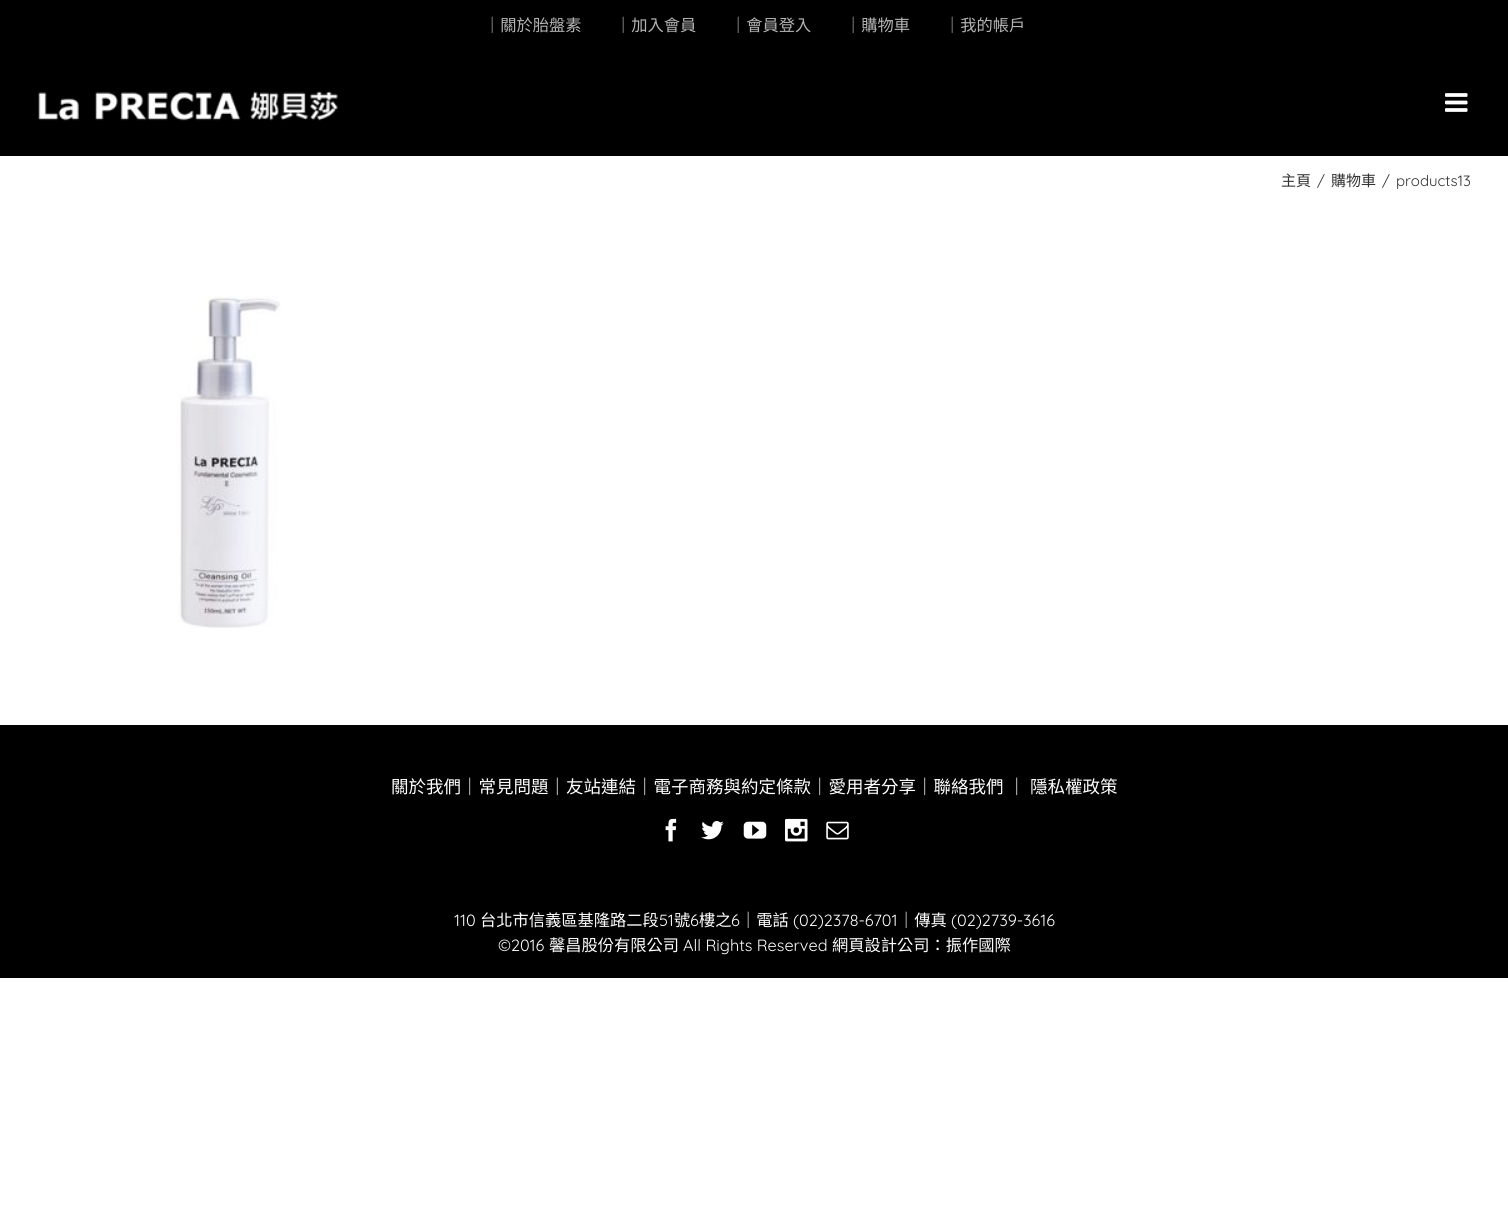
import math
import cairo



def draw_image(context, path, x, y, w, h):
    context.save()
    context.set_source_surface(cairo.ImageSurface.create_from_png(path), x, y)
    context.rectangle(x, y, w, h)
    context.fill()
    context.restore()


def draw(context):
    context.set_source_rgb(1, 1, 1)
    context.paint()
    context.set_source_rgb(0, 0, 0)
    context.rectangle(0, 0, 1508, 156)
    context.fill()
    draw_image(context, "images/1.png", 38, 91, 300, 30)
    draw_image(context, "images/2.png", 1445, 93, 23, 19)
    draw_image(context, "images/3.png", 178, 295, 103, 333)
    context.rectangle(0, 725, 1508, 253)
    context.fill()
    draw_image(context, "images/4.png", 665, 818, 12, 24)
    draw_image(context, "images/5.png", 701, 821, 23, 19)
    draw_image(context, "images/6.png", 743, 821, 24, 18)
    draw_image(context, "images/7.png", 785, 818, 23, 24)
    draw_image(context, "images/8.png", 826, 821, 23, 19)
    context.select_font_face("Noto Sans CJK TC")
    context.set_font_size(16.25)
    context.set_source_rgb(181 / 255, 181 / 255, 181 / 255)
    context.move_to(484, 31)
    context.show_text("｜關於胎盤素")
    context.move_to(615, 31)
    context.show_text("｜加入會員")
    context.move_to(730, 31)
    context.show_text("｜會員登入")
    context.move_to(845, 31)
    context.show_text("｜購物車")
    context.move_to(944, 31)
    context.show_text("｜我的帳戶")
    context.set_font_size(15)
    context.set_source_rgb(51 / 255, 51 / 255, 51 / 255)
    context.move_to(1281, 186)
    context.show_text("主頁")
    context.select_font_face("Quicksand")
    context.move_to(1317, 186)
    context.show_text("/")
    context.select_font_face("Noto Sans CJK TC")
    context.move_to(1331, 186)
    context.show_text("購物車")
    context.select_font_face("Quicksand")
    context.move_to(1382, 186)
    context.show_text("/")
    context.move_to(1396, 186)
    context.show_text("products13")
    context.select_font_face("Noto Sans CJK TC")
    context.set_font_size(17.5)
    context.set_source_rgb(1, 1, 1)
    context.move_to(391, 793)
    context.show_text("關於我們｜常見問題｜友站連結｜電子商務與約定條款｜愛用者分享｜聯絡我們")
    context.move_to(1008, 793)
    context.show_text("｜")
    context.move_to(1030, 793)
    context.show_text("隱私權政策")
    context.select_font_face("Quicksand")
    context.set_font_size(16.25)
    context.move_to(454, 926)
    context.show_text("110")
    context.select_font_face("Noto Sans CJK TC")
    context.move_to(480, 926)
    context.show_text("台北市信義區基隆路二段")
    context.select_font_face("Quicksand")
    context.move_to(659, 926)
    context.show_text("51")
    context.select_font_face("Noto Sans CJK TC")
    context.move_to(674, 926)
    context.show_text("號")
    context.select_font_face("Quicksand")
    context.move_to(690, 926)
    context.show_text("6")
    context.select_font_face("Noto Sans CJK TC")
    context.move_to(699, 926)
    context.show_text("樓之")
    context.select_font_face("Quicksand")
    context.move_to(731, 926)
    context.show_text("6")
    context.select_font_face("Noto Sans CJK TC")
    context.move_to(740, 926)
    context.show_text("｜電話")
    context.select_font_face("Quicksand")
    context.move_to(793, 926)
    context.show_text("(02)2378-6701")
    context.select_font_face("Noto Sans CJK TC")
    context.move_to(898, 926)
    context.show_text("｜傳真")
    context.select_font_face("Quicksand")
    context.move_to(951, 926)
    context.show_text("(02)2739-3616")
    context.move_to(498, 951)
    context.show_text("©2016")
    context.select_font_face("Noto Sans CJK TC")
    context.move_to(549, 951)
    context.show_text("馨昌股份有限公司")
    context.select_font_face("Quicksand")
    context.move_to(683, 951)
    context.show_text("All Rights Reserved")
    context.select_font_face("Noto Sans CJK TC")
    context.move_to(832, 951)
    context.show_text("網頁設計公司：振作國際")


surface = cairo.ImageSurface(cairo.Format.RGB24, 1508, 1218)
context = cairo.Context(surface)
options = cairo.FontOptions()
options.set_hint_metrics(cairo.HintMetrics.OFF)
options.set_hint_style(cairo.HintStyle.NONE)
context.set_font_options(options)
context.set_miter_limit(4)
draw(context)
surface.write_to_png("out.png")
